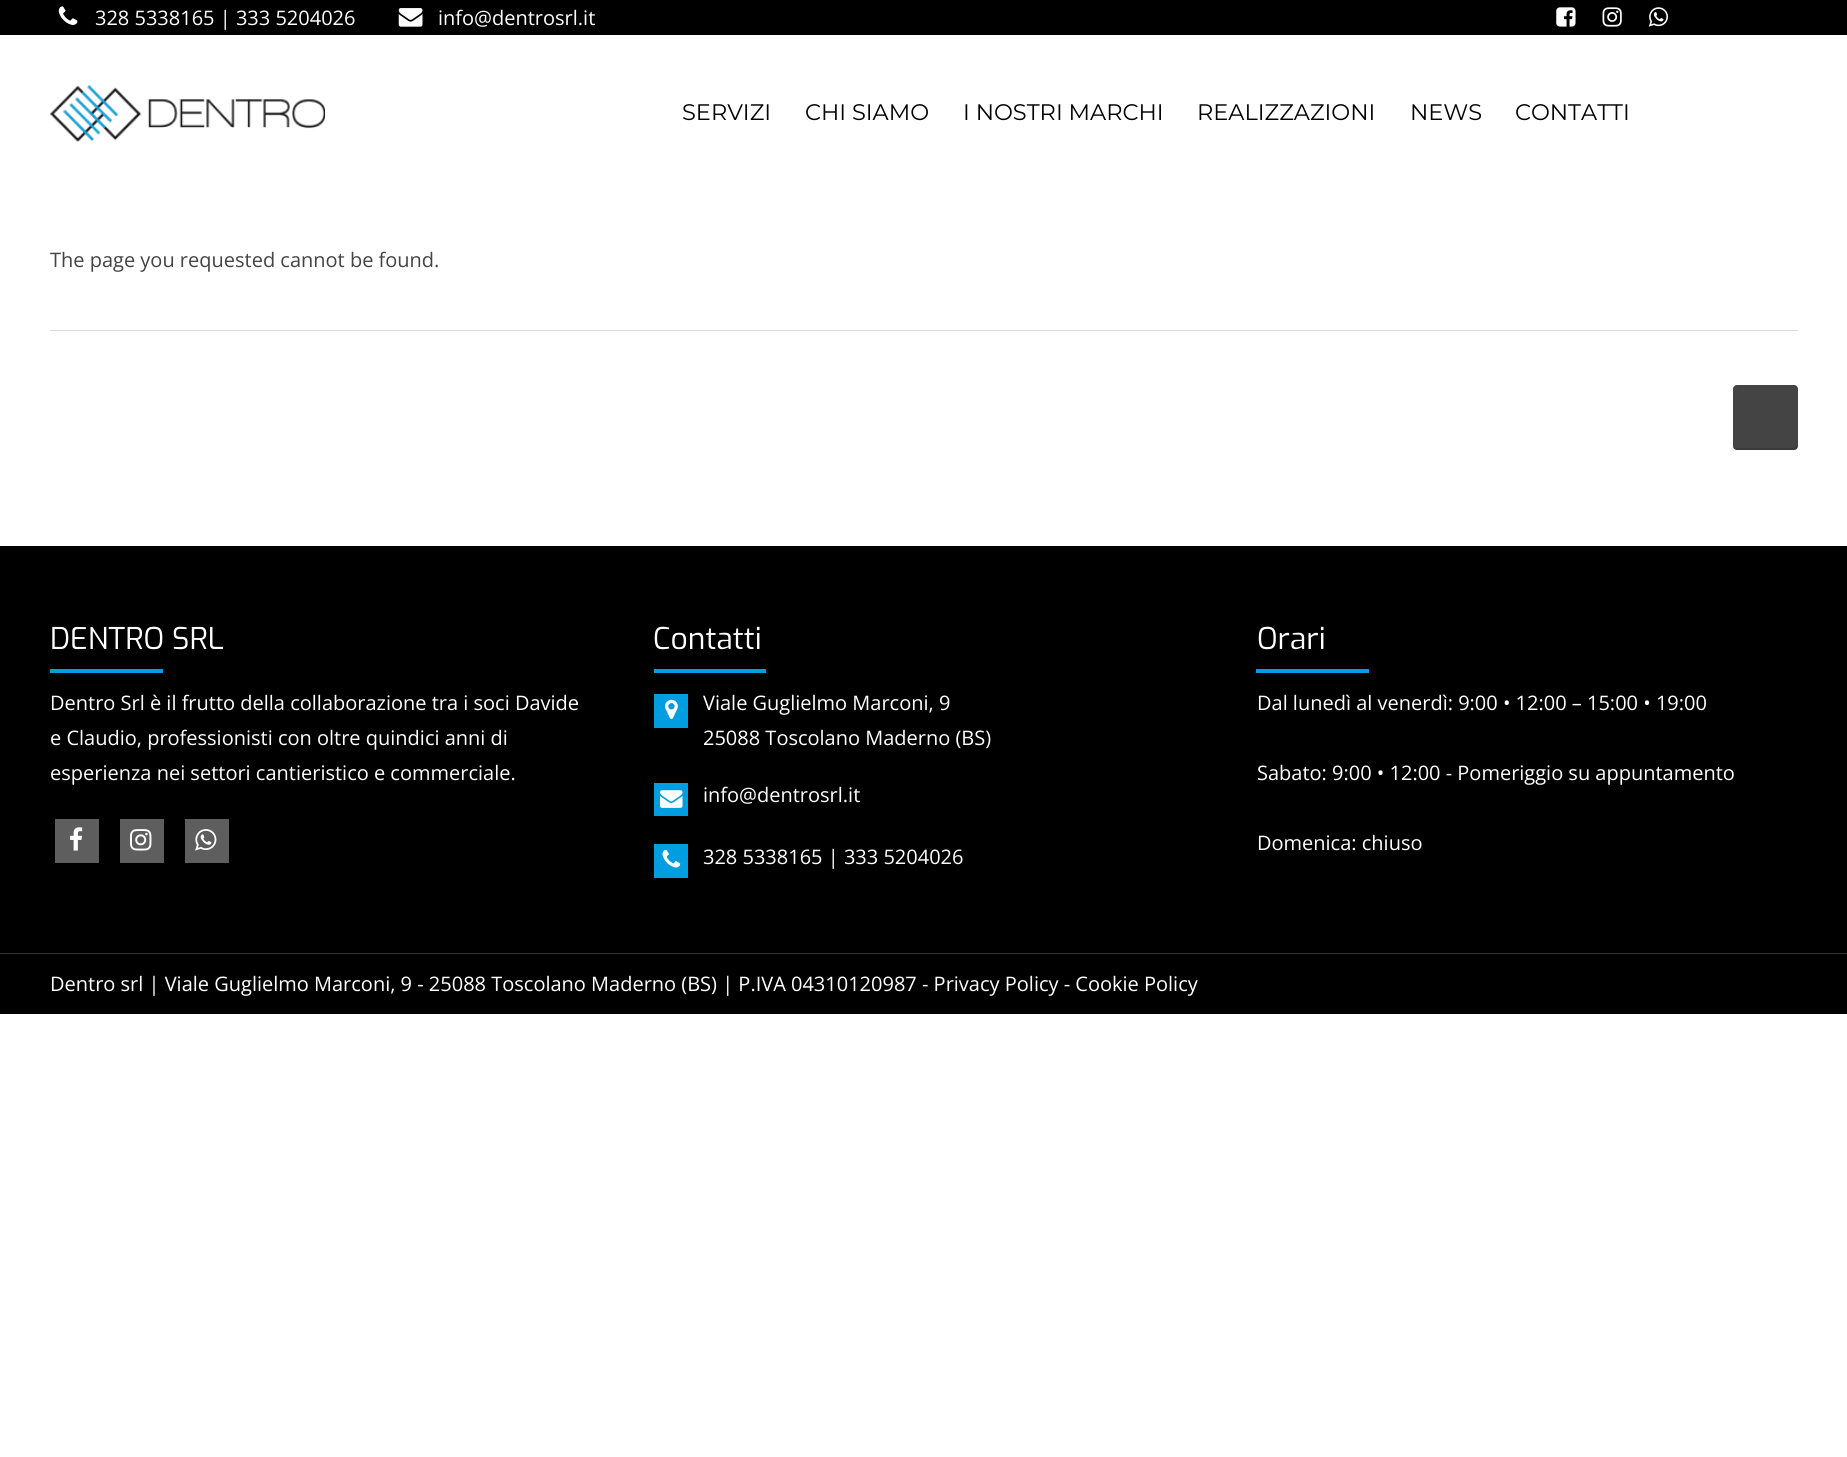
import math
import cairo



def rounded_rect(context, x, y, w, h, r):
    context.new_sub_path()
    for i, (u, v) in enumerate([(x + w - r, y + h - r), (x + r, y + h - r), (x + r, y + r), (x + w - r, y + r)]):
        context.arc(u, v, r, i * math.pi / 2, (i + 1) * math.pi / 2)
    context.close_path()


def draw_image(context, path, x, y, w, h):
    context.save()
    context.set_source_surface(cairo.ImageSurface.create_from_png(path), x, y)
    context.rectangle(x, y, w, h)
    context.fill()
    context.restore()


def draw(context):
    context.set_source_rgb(1, 1, 1)
    context.paint()
    context.set_source_rgb(0, 0, 0)
    context.rectangle(0, 0, 1847, 35)
    context.fill()
    draw_image(context, "images/1.png", 58, 6, 20, 19)
    draw_image(context, "images/2.png", 398, 8, 25, 19)
    draw_image(context, "images/3.png", 1556, 7, 20, 20)
    draw_image(context, "images/4.png", 1602, 7, 20, 20)
    draw_image(context, "images/5.png", 1648, 7, 20, 20)
    draw_image(context, "images/6.png", 50, 85, 275, 57)
    context.set_source_rgb(218 / 255, 218 / 255, 218 / 255)
    context.rectangle(50, 330, 1748, 1)
    context.fill()
    context.set_source_rgb(68 / 255, 68 / 255, 68 / 255)
    rounded_rect(context, 1733, 385, 65, 65, 4)
    context.fill()
    context.set_source_rgba(0, 0, 0, 0.15)
    context.new_path()
    context.move_to(1733, 447)
    context.curve_to(1733, 448, 1735, 450, 1737, 450)
    context.line_to(1794, 450)
    context.curve_to(1796, 450, 1798, 448, 1798, 446)
    context.line_to(1798, 444)
    context.curve_to(1798, 446, 1796, 448, 1794, 448)
    context.line_to(1736, 448)
    context.curve_to(1735, 448, 1734, 447, 1733, 447)
    context.close_path()
    context.fill()
    context.set_source_rgb(0, 0, 0)
    context.rectangle(0, 546, 1847, 407)
    context.fill()
    context.set_source_rgb(51 / 255, 51 / 255, 51 / 255)
    context.rectangle(0, 953, 1847, 1)
    context.fill()
    context.set_source_rgb(0, 158 / 255, 224 / 255)
    context.rectangle(50, 669, 113, 4)
    context.fill()
    context.set_source_rgb(94 / 255, 94 / 255, 94 / 255)
    context.rectangle(55, 819, 44, 44)
    context.fill()
    draw_image(context, "images/7.png", 70, 827, 13, 24)
    context.rectangle(120, 819, 44, 44)
    context.fill()
    draw_image(context, "images/8.png", 130, 829, 22, 22)
    context.rectangle(185, 819, 44, 44)
    context.fill()
    draw_image(context, "images/9.png", 195, 829, 22, 22)
    context.set_source_rgb(0, 158 / 255, 224 / 255)
    context.rectangle(654, 669, 112, 4)
    context.fill()
    context.rectangle(654, 694, 34, 34)
    context.fill()
    draw_image(context, "images/10.png", 665, 699, 13, 21)
    context.rectangle(654, 783, 34, 33)
    context.fill()
    draw_image(context, "images/11.png", 660, 790, 23, 18)
    context.rectangle(654, 844, 34, 34)
    context.fill()
    draw_image(context, "images/12.png", 662, 849, 19, 19)
    context.rectangle(1256, 669, 113, 4)
    context.fill()
    context.set_source_rgb(0, 0, 0)
    context.rectangle(0, 954, 1847, 60)
    context.fill()
    context.select_font_face("Open Sans")
    context.set_font_size(20)
    context.set_source_rgb(1, 1, 1)
    context.move_to(95, 25)
    context.show_text("328 5338165 | 333 5204026")
    context.move_to(438, 25)
    context.show_text("info@dentrosrl.it")
    context.select_font_face("Montserrat Thin")
    context.set_font_size(22.5)
    context.set_source_rgb(0, 0, 0)
    context.move_to(682, 120)
    context.show_text("SERVIZI")
    context.move_to(805, 120)
    context.show_text("CHI SIAMO")
    context.move_to(963, 120)
    context.show_text("I NOSTRI MARCHI")
    context.move_to(1197, 120)
    context.show_text("REALIZZAZIONI")
    context.move_to(1410, 120)
    context.show_text("NEWS")
    context.move_to(1515, 120)
    context.show_text("CONTATTI")
    context.select_font_face("Open Sans")
    context.set_font_size(20)
    context.set_source_rgb(68 / 255, 68 / 255, 68 / 255)
    context.move_to(50, 267)
    context.show_text("The page you requested cannot be found.")
    context.select_font_face("Exo")
    context.set_font_size(30)
    context.set_source_rgb(1, 1, 1)
    context.move_to(50, 649)
    context.show_text("DENTRO SRL")
    context.select_font_face("Open Sans")
    context.set_font_size(20)
    context.move_to(50, 710)
    context.show_text("Dentro Srl è il frutto della collaborazione tra i soci Davide")
    context.move_to(50, 745)
    context.show_text("e Claudio, professionisti con oltre quindici anni di")
    context.move_to(50, 780)
    context.show_text("esperienza nei settori cantieristico e commerciale.")
    context.select_font_face("Exo")
    context.set_font_size(30)
    context.move_to(653, 649)
    context.show_text("Contatti")
    context.select_font_face("Open Sans")
    context.set_font_size(20)
    context.move_to(703, 710)
    context.show_text("Viale Guglielmo Marconi, 9")
    context.move_to(703, 745)
    context.show_text("25088 Toscolano Maderno (BS)")
    context.move_to(703, 802)
    context.show_text("info@dentrosrl.it")
    context.move_to(703, 864)
    context.show_text("328 5338165 | 333 5204026")
    context.select_font_face("Exo")
    context.set_font_size(30)
    context.move_to(1257, 649)
    context.show_text("Orari")
    context.select_font_face("Open Sans")
    context.set_font_size(20)
    context.move_to(1257, 710)
    context.show_text("Dal lunedì al venerdì: 9:00 • 12:00 – 15:00 • 19:00")
    context.move_to(1257, 780)
    context.show_text("Sabato: 9:00 • 12:00 - Pomeriggio su appuntamento")
    context.move_to(1257, 850)
    context.show_text("Domenica: chiuso")
    context.move_to(50, 991)
    context.show_text("Dentro srl | Viale Guglielmo Marconi, 9 - 25088 Toscolano Maderno (BS) | P.IVA 04310120987 - Privacy Policy - Cookie Policy")


surface = cairo.ImageSurface(cairo.Format.RGB24, 1847, 1457)
context = cairo.Context(surface)
options = cairo.FontOptions()
options.set_hint_metrics(cairo.HintMetrics.OFF)
options.set_hint_style(cairo.HintStyle.NONE)
context.set_font_options(options)
context.set_miter_limit(4)
draw(context)
surface.write_to_png("out.png")
